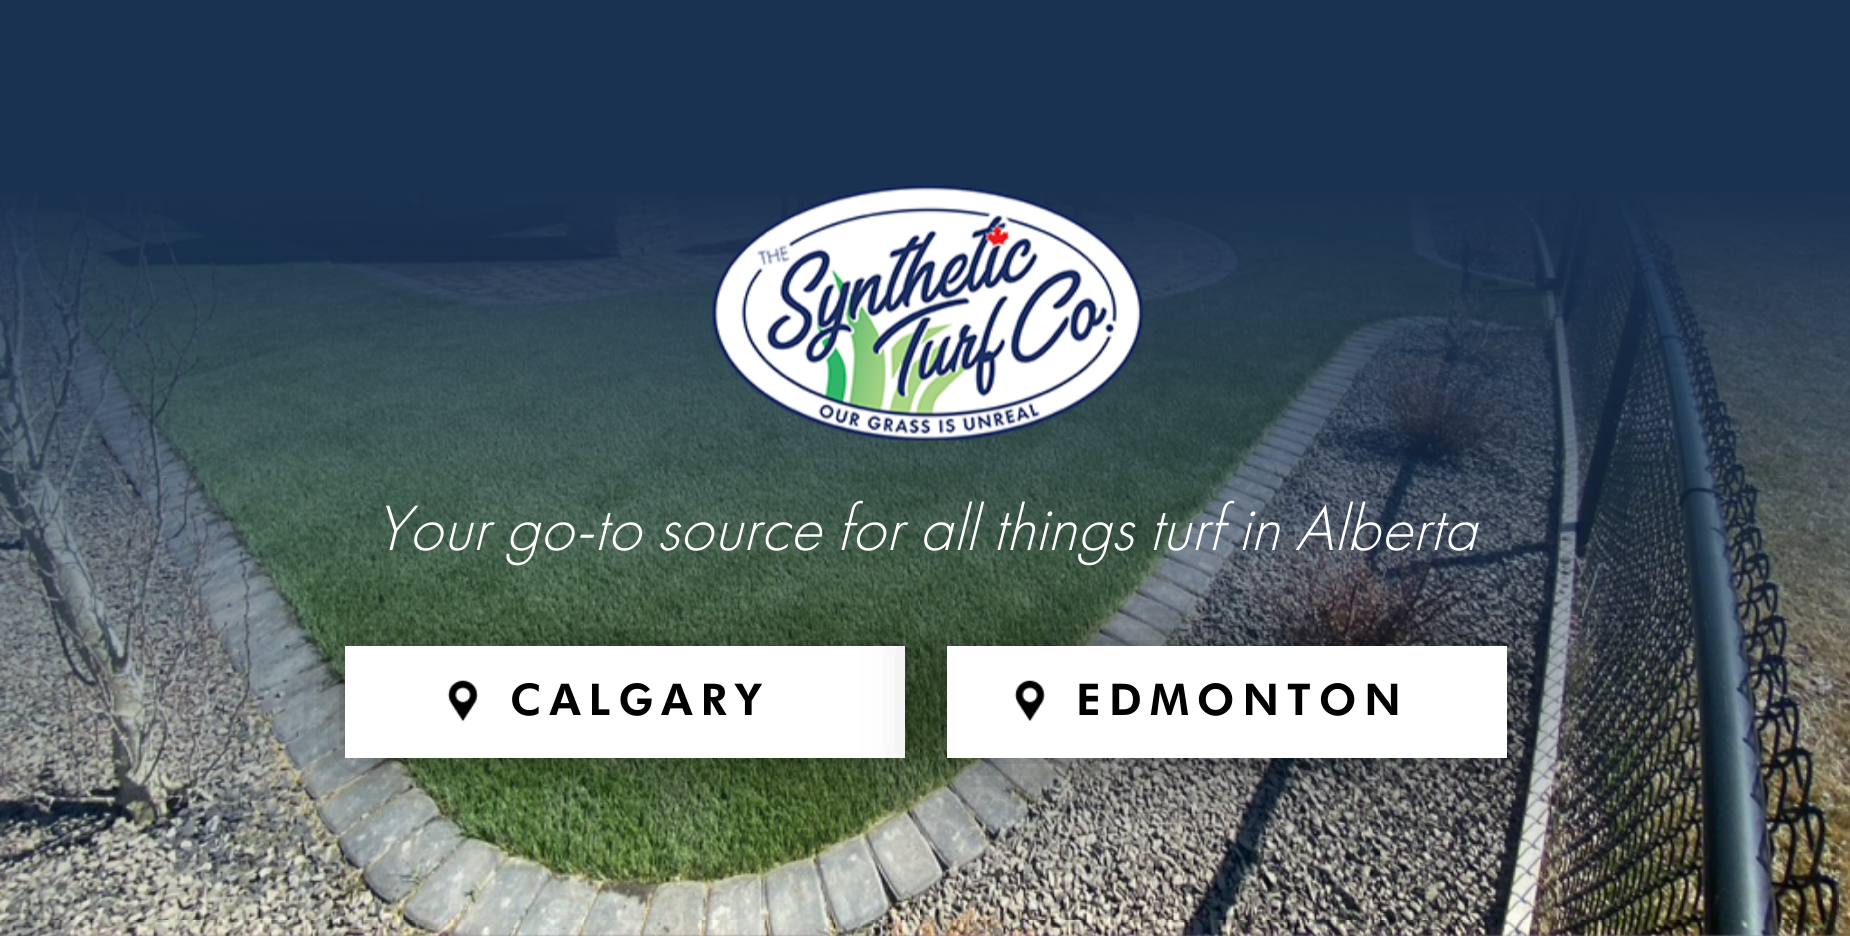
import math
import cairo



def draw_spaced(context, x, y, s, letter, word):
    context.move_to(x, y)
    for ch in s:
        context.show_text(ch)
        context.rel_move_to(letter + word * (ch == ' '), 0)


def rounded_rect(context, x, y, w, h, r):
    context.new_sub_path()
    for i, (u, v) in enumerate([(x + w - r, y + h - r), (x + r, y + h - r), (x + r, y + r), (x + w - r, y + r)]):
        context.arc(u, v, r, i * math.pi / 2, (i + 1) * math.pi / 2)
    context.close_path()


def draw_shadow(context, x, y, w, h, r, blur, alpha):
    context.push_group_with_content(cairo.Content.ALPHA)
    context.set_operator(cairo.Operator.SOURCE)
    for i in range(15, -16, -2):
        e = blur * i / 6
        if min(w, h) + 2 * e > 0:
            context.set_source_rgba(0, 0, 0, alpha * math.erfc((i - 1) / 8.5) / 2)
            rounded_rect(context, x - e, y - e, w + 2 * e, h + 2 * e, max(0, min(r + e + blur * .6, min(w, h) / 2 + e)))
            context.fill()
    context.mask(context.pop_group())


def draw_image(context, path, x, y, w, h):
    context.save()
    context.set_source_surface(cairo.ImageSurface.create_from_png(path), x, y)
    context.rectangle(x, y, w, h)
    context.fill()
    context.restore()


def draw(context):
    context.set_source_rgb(1, 1, 1)
    context.paint()
    draw_image(context, "images/1.png", 0, 192, 1850, 744)
    gradient = cairo.LinearGradient(926, 936, 926, 0)
    gradient.add_color_stop_rgba(0, 26 / 255, 50 / 255, 81 / 255, 0)
    gradient.add_color_stop_rgba(0.8, 26 / 255, 50 / 255, 81 / 255, 1)
    context.set_source(gradient)
    context.rectangle(0, 0, 1850, 920)
    context.fill()
    draw_image(context, "images/2.png", 712, 184, 432, 257)
    context.set_source_rgb(0, 0, 0)
    draw_shadow(context, 345, 646, 560, 112, 0, 35, 0.5)
    context.set_source_rgb(1, 1, 1)
    context.rectangle(345, 646, 560, 112)
    context.fill()
    draw_image(context, "images/3.png", 447, 680, 32, 41)
    context.set_source_rgb(0, 0, 0)
    draw_shadow(context, 947, 646, 560, 112, 0, 35, 0.5)
    context.set_source_rgb(1, 1, 1)
    context.rectangle(947, 646, 560, 112)
    context.fill()
    draw_image(context, "images/3.png", 1014, 680, 32, 41)
    context.select_font_face("Futura PT Light", cairo.FontSlant.ITALIC)
    context.set_font_size(66.5)
    context.move_to(374, 550)
    context.show_text("Your go-to source for all things turf in Alberta")
    context.select_font_face("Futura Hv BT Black")
    context.set_font_size(43.75)
    context.set_source_rgb(0, 0, 0)
    draw_spaced(context, 510, 715, "CALGARY", 8, 0)
    draw_spaced(context, 1076, 715, "EDMONTON", 8, 0)


surface = cairo.ImageSurface(cairo.Format.RGB24, 1850, 936)
context = cairo.Context(surface)
options = cairo.FontOptions()
options.set_hint_metrics(cairo.HintMetrics.OFF)
options.set_hint_style(cairo.HintStyle.NONE)
context.set_font_options(options)
context.set_miter_limit(4)
draw(context)
surface.write_to_png("out.png")
